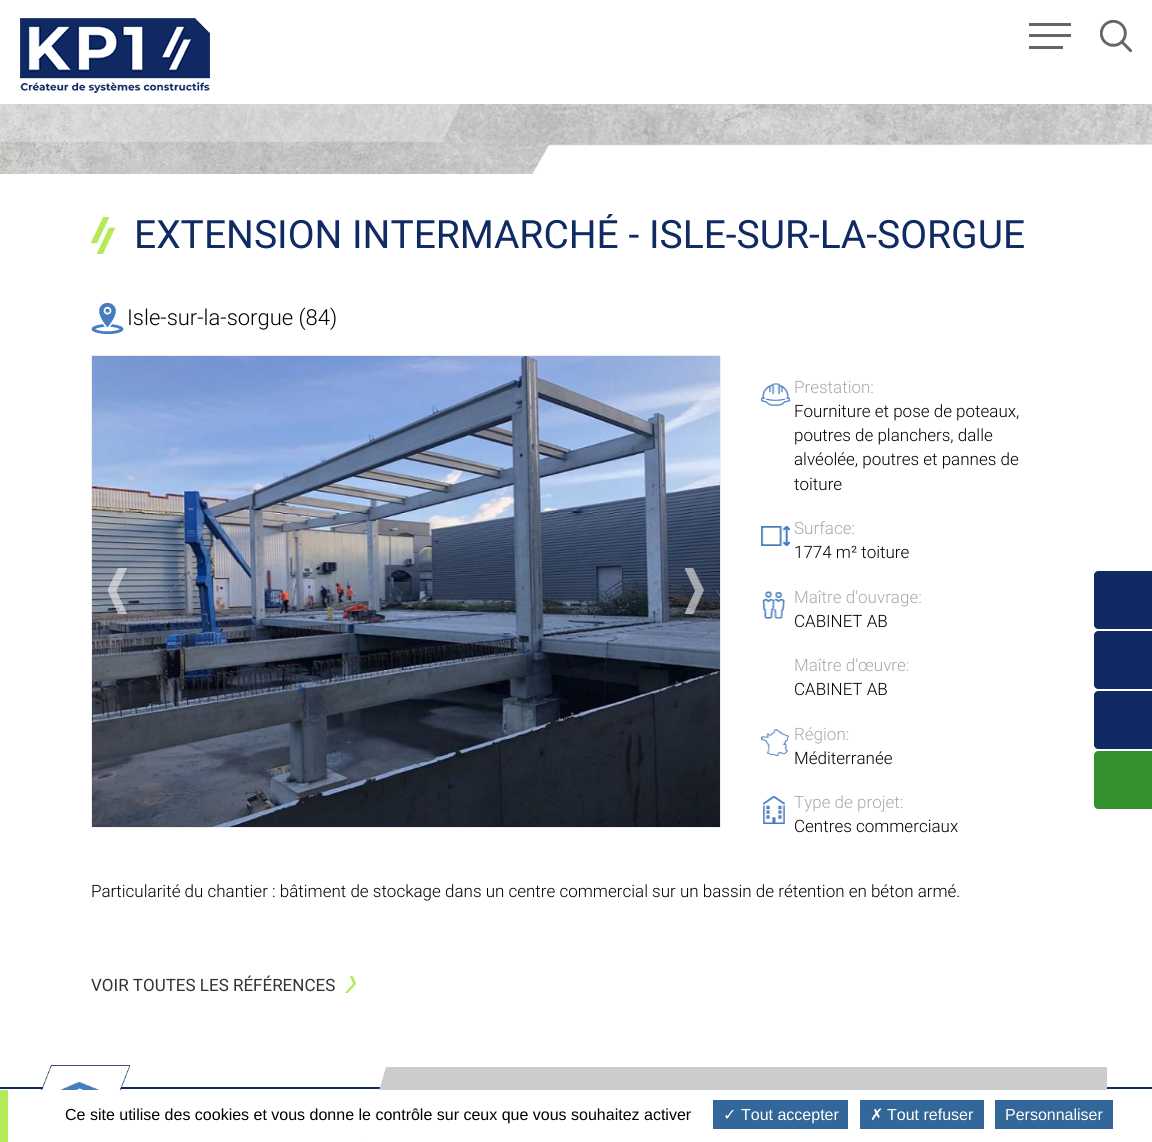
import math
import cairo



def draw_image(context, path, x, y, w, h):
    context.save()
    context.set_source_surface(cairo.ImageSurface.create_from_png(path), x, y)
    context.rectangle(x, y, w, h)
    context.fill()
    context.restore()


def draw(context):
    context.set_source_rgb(1, 1, 1)
    context.paint()
    draw_image(context, "images/1.png", 20, 18, 190, 75)
    draw_image(context, "images/2.png", 1029, 23, 42, 26)
    draw_image(context, "images/3.png", 1100, 20, 32, 32)
    draw_image(context, "images/4.png", 0, 104, 1152, 70)
    draw_image(context, "images/5.png", 91, 217, 24, 37)
    draw_image(context, "images/6.png", 91, 303, 33, 31)
    context.rectangle(91.5, 355.5, 629, 472)
    context.set_source_rgb(238 / 255, 238 / 255, 238 / 255)
    context.set_line_width(1)
    context.stroke()
    draw_image(context, "images/7.png", 92, 356, 628, 471)
    draw_image(context, "images/8.png", 108, 568, 19, 46)
    draw_image(context, "images/9.png", 685, 568, 19, 46)
    draw_image(context, "images/10.png", 761, 383, 30, 23)
    draw_image(context, "images/11.png", 761, 526, 29, 20)
    draw_image(context, "images/12.png", 762, 591, 23, 28)
    draw_image(context, "images/13.png", 761, 729, 28, 27)
    draw_image(context, "images/14.png", 763, 796, 22, 28)
    context.set_source_rgb(16 / 255, 42 / 255, 99 / 255)
    context.new_path()
    context.move_to(1098, 571)
    context.line_to(1152, 571)
    context.line_to(1152, 629)
    context.line_to(1098, 629)
    context.curve_to(1096, 629, 1094, 627, 1094, 625)
    context.line_to(1094, 575)
    context.curve_to(1094, 573, 1096, 571, 1098, 571)
    context.close_path()
    context.fill()
    context.new_path()
    context.move_to(1098, 631)
    context.line_to(1152, 631)
    context.line_to(1152, 689)
    context.line_to(1098, 689)
    context.curve_to(1096, 689, 1094, 687, 1094, 685)
    context.line_to(1094, 635)
    context.curve_to(1094, 633, 1096, 631, 1098, 631)
    context.close_path()
    context.fill()
    context.new_path()
    context.move_to(1098, 691)
    context.line_to(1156, 691)
    context.line_to(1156, 749)
    context.line_to(1098, 749)
    context.curve_to(1096, 749, 1094, 747, 1094, 745)
    context.line_to(1094, 695)
    context.curve_to(1094, 693, 1096, 691, 1098, 691)
    context.close_path()
    context.fill()
    context.set_source_rgb(51 / 255, 146 / 255, 46 / 255)
    context.new_path()
    context.move_to(1098, 751)
    context.line_to(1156, 751)
    context.line_to(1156, 809)
    context.line_to(1098, 809)
    context.curve_to(1096, 809, 1094, 807, 1094, 805)
    context.line_to(1094, 755)
    context.curve_to(1094, 753, 1096, 751, 1098, 751)
    context.close_path()
    context.fill()
    draw_image(context, "images/15.png", 345, 976, 11, 17)
    context.set_source_rgb(16 / 255, 42 / 255, 99 / 255)
    context.rectangle(0, 1087, 1152, 2)
    context.fill()
    draw_image(context, "images/16.png", 41, 1065, 89, 25)
    context.set_source_rgb(204 / 255, 204 / 255, 204 / 255)
    context.new_path()
    context.move_to(386, 1067)
    context.line_to(728, 1067)
    context.line_to(728, 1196)
    context.line_to(348, 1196)
    context.close_path()
    context.fill()
    context.rectangle(728, 1067, 379, 23)
    context.fill()
    context.set_source_rgb(1, 1, 1)
    context.rectangle(364, 1090, 364, 52)
    context.fill()
    context.set_source_rgb(181 / 255, 235 / 255, 87 / 255)
    context.rectangle(0, 1090, 8, 52)
    context.fill()
    context.set_source_rgb(51 / 255, 102 / 255, 153 / 255)
    context.rectangle(713, 1100, 135, 29)
    context.fill()
    context.rectangle(860, 1100, 124, 29)
    context.fill()
    context.rectangle(995, 1100, 118, 29)
    context.fill()
    context.save()
    context.rectangle(0, 214, 1152, 54)
    context.clip()
    context.select_font_face("Roboto")
    context.set_font_size(39)
    context.set_source_rgb(16 / 255, 42 / 255, 99 / 255)
    context.move_to(134, 248)
    context.show_text("EXTENSION INTERMARCHÉ - ISLE-SUR-LA-SORGUE")
    context.restore()
    context.select_font_face("Roboto Light")
    context.set_font_size(22)
    context.set_source_rgb(0, 0, 0)
    context.move_to(127, 325)
    context.show_text("Isle-sur-la-sorgue (84)")
    context.set_font_size(17)
    context.set_source_rgb(168 / 255, 168 / 255, 168 / 255)
    context.move_to(794, 393)
    context.show_text("Prestation:")
    context.set_source_rgb(0, 0, 0)
    context.move_to(794, 417)
    context.show_text("Fourniture et pose de poteaux,")
    context.move_to(794, 441)
    context.show_text("poutres de planchers, dalle")
    context.move_to(794, 465)
    context.show_text("alvéolée, poutres et pannes de")
    context.move_to(794, 490)
    context.show_text("toiture")
    context.set_source_rgb(168 / 255, 168 / 255, 168 / 255)
    context.move_to(794, 534)
    context.show_text("Surface:")
    context.set_source_rgb(0, 0, 0)
    context.move_to(794, 558)
    context.show_text("1774 m² toiture")
    context.set_source_rgb(168 / 255, 168 / 255, 168 / 255)
    context.move_to(794, 603)
    context.show_text("Maître d'ouvrage:")
    context.set_source_rgb(0, 0, 0)
    context.move_to(794, 627)
    context.show_text("CABINET AB")
    context.set_source_rgb(168 / 255, 168 / 255, 168 / 255)
    context.move_to(794, 671)
    context.show_text("Maître d'œuvre:")
    context.set_source_rgb(0, 0, 0)
    context.move_to(794, 695)
    context.show_text("CABINET AB")
    context.set_source_rgb(168 / 255, 168 / 255, 168 / 255)
    context.move_to(794, 740)
    context.show_text("Région:")
    context.set_source_rgb(0, 0, 0)
    context.move_to(794, 764)
    context.show_text("Méditerranée")
    context.set_source_rgb(168 / 255, 168 / 255, 168 / 255)
    context.move_to(794, 808)
    context.show_text("Type de projet:")
    context.set_source_rgb(0, 0, 0)
    context.move_to(794, 832)
    context.show_text("Centres commerciaux")
    context.move_to(91, 897)
    context.show_text("Particularité du chantier : bâtiment de stockage dans un centre commercial sur un bassin de rétention en béton armé.")
    context.select_font_face("Roboto")
    context.set_source_rgb(51 / 255, 51 / 255, 51 / 255)
    context.move_to(91, 991)
    context.show_text("VOIR TOUTES LES RÉFÉRENCES")
    context.select_font_face("Liberation Sans")
    context.set_font_size(16)
    context.set_source_rgb(0, 0, 0)
    context.move_to(65, 1120)
    context.show_text("Ce site utilise des cookies et vous donne le contrôle sur ceux que vous souhaitez activer")
    context.select_font_face("DejaVu Sans")
    context.set_source_rgb(1, 1, 1)
    context.move_to(723, 1120)
    context.show_text("✓")
    context.select_font_face("Liberation Sans")
    context.move_to(741, 1120)
    context.show_text("Tout accepter")
    context.select_font_face("DejaVu Sans")
    context.move_to(870, 1120)
    context.show_text("✗")
    context.select_font_face("Liberation Sans")
    context.move_to(887, 1120)
    context.show_text("Tout refuser")
    context.move_to(1005, 1120)
    context.show_text("Personnaliser")


surface = cairo.ImageSurface(cairo.Format.RGB24, 1152, 1142)
context = cairo.Context(surface)
options = cairo.FontOptions()
options.set_hint_metrics(cairo.HintMetrics.OFF)
options.set_hint_style(cairo.HintStyle.NONE)
context.set_font_options(options)
context.set_miter_limit(4)
draw(context)
surface.write_to_png("out.png")
